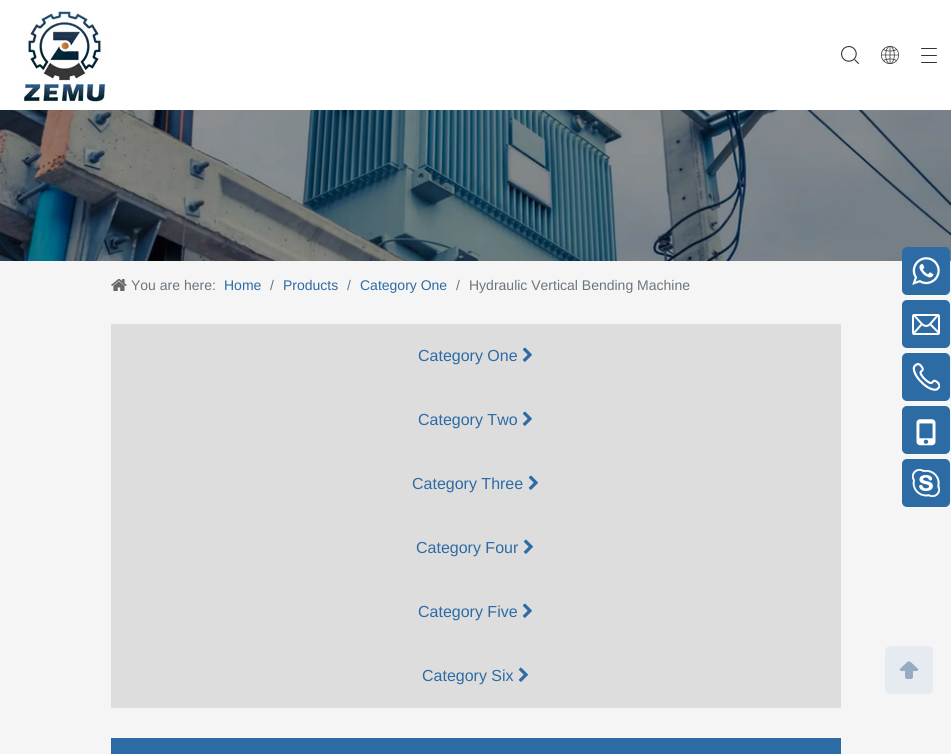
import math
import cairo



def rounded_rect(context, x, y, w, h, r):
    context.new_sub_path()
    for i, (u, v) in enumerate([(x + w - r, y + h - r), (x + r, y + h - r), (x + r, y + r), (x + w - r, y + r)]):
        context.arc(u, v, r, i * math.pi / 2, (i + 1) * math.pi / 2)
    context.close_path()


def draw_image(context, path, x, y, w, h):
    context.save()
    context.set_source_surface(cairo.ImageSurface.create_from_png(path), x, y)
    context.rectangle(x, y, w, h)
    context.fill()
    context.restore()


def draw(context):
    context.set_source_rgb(245 / 255, 245 / 255, 245 / 255)
    context.paint()
    context.set_source_rgb(1, 1, 1)
    context.rectangle(0, 0, 951, 110)
    context.fill()
    draw_image(context, "images/1.png", 18, 8, 89, 96)
    draw_image(context, "images/2.png", 841, 46, 18, 18)
    draw_image(context, "images/3.png", 881, 46, 18, 18)
    draw_image(context, "images/4.png", 921, 48, 16, 15)
    draw_image(context, "images/5.png", 0, 110, 951, 151)
    draw_image(context, "images/6.png", 111, 279, 16, 12)
    context.set_source_rgb(221 / 255, 221 / 255, 221 / 255)
    context.rectangle(111, 324, 730, 384)
    context.fill()
    draw_image(context, "images/7.png", 522, 347, 10, 15)
    draw_image(context, "images/7.png", 522, 411, 10, 15)
    draw_image(context, "images/7.png", 528, 475, 10, 15)
    draw_image(context, "images/7.png", 523, 539, 10, 15)
    draw_image(context, "images/7.png", 522, 603, 10, 15)
    draw_image(context, "images/7.png", 518, 667, 10, 15)
    context.set_source_rgb(44 / 255, 107 / 255, 163 / 255)
    context.rectangle(111, 738, 730, 16)
    context.fill()
    rounded_rect(context, 902, 247, 48, 48, 5)
    context.fill()
    draw_image(context, "images/8.png", 912, 257, 28, 28)
    rounded_rect(context, 902, 300, 48, 48, 5)
    context.fill()
    draw_image(context, "images/9.png", 912, 314, 28, 21)
    rounded_rect(context, 902, 353, 48, 48, 5)
    context.fill()
    draw_image(context, "images/10.png", 912, 363, 28, 28)
    rounded_rect(context, 902, 406, 48, 48, 5)
    context.fill()
    draw_image(context, "images/11.png", 916, 419, 20, 27)
    rounded_rect(context, 902, 459, 48, 48, 5)
    context.fill()
    draw_image(context, "images/12.png", 912, 469, 28, 28)
    draw_image(context, "images/13.png", 885, 646, 48, 48)
    context.select_font_face("Liberation Sans")
    context.set_font_size(14)
    context.set_source_rgb(108 / 255, 117 / 255, 125 / 255)
    context.move_to(131, 290)
    context.show_text("You are here:")
    context.set_source_rgb(44 / 255, 107 / 255, 163 / 255)
    context.move_to(224, 290)
    context.show_text("Home")
    context.set_source_rgb(108 / 255, 117 / 255, 125 / 255)
    context.move_to(270, 290)
    context.show_text("/")
    context.set_source_rgb(44 / 255, 107 / 255, 163 / 255)
    context.move_to(283, 290)
    context.show_text("Products")
    context.set_source_rgb(108 / 255, 117 / 255, 125 / 255)
    context.move_to(347, 290)
    context.show_text("/")
    context.set_source_rgb(44 / 255, 107 / 255, 163 / 255)
    context.move_to(360, 290)
    context.show_text("Category One")
    context.set_source_rgb(108 / 255, 117 / 255, 125 / 255)
    context.move_to(456, 290)
    context.show_text("/")
    context.move_to(469, 290)
    context.show_text("Hydraulic Vertical Bending Machine")
    context.set_font_size(16)
    context.set_source_rgb(44 / 255, 107 / 255, 163 / 255)
    context.move_to(418, 361)
    context.show_text("Category One")
    context.move_to(418, 425)
    context.show_text("Category Two")
    context.move_to(412, 489)
    context.show_text("Category Three")
    context.move_to(416, 553)
    context.show_text("Category Four")
    context.move_to(418, 617)
    context.show_text("Category Five")
    context.move_to(422, 681)
    context.show_text("Category Six")


surface = cairo.ImageSurface(cairo.Format.RGB24, 951, 754)
context = cairo.Context(surface)
options = cairo.FontOptions()
options.set_hint_metrics(cairo.HintMetrics.OFF)
options.set_hint_style(cairo.HintStyle.NONE)
context.set_font_options(options)
context.set_miter_limit(4)
draw(context)
surface.write_to_png("out.png")
